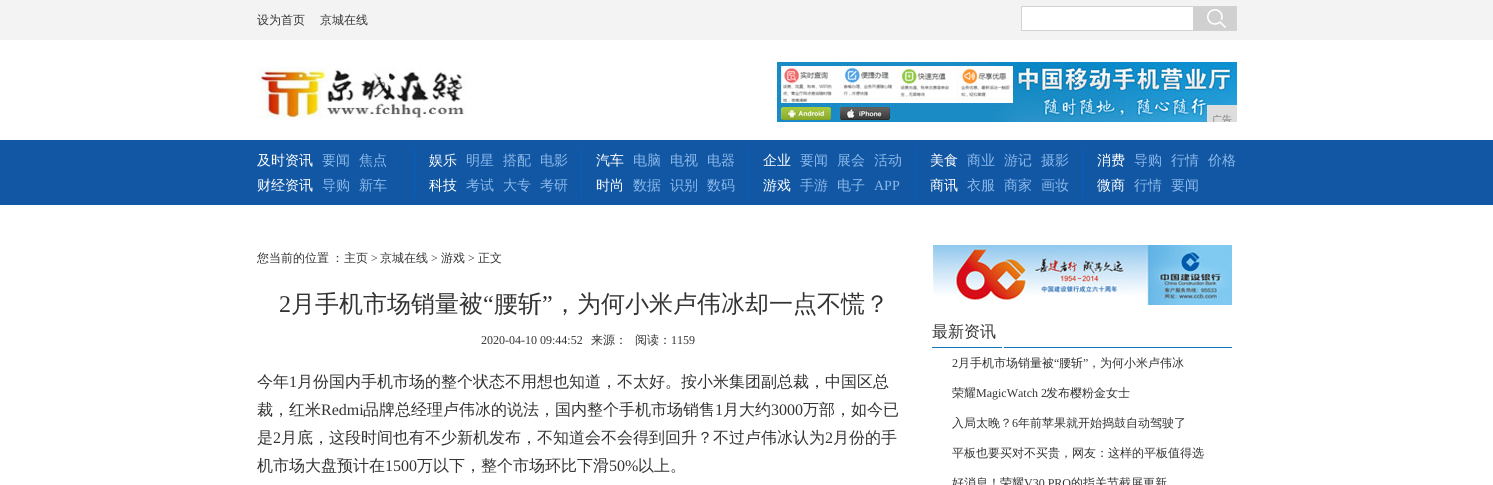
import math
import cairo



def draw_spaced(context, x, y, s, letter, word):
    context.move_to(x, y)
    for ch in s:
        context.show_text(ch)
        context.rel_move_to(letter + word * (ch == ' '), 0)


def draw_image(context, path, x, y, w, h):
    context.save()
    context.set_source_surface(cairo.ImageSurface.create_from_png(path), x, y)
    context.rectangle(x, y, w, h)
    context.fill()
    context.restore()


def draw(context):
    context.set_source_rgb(1, 1, 1)
    context.paint()
    context.set_source_rgb(243 / 255, 243 / 255, 243 / 255)
    context.rectangle(0, 0, 1493, 40)
    context.fill()
    context.set_source_rgb(1, 1, 1)
    context.rectangle(1022, 7, 171, 23)
    context.fill()
    context.rectangle(1021.5, 6.5, 215, 24)
    context.set_source_rgb(210 / 255, 210 / 255, 210 / 255)
    context.set_line_width(1)
    context.stroke()
    context.set_source_rgb(208 / 255, 208 / 255, 208 / 255)
    context.rectangle(1193, 7, 43, 23)
    context.fill()
    draw_image(context, "images/1.png", 1207, 9, 19, 19)
    draw_image(context, "images/2.png", 257, 67, 210, 53)
    draw_image(context, "images/3.png", 777, 62, 460, 60)
    context.set_source_rgb(221 / 255, 221 / 255, 221 / 255)
    context.rectangle(1207, 105, 30, 17)
    context.fill()
    context.set_source_rgb(18 / 255, 87 / 255, 164 / 255)
    context.rectangle(0, 140, 1493, 65)
    context.fill()
    context.set_source_rgb(5 / 255, 95 / 255, 194 / 255)
    context.rectangle(414, 148, 1, 50)
    context.fill()
    context.rectangle(581, 148, 1, 50)
    context.fill()
    context.rectangle(748, 148, 1, 50)
    context.fill()
    context.rectangle(915, 148, 1, 50)
    context.fill()
    context.rectangle(1082, 148, 1, 50)
    context.fill()
    draw_image(context, "images/4.png", 933, 245, 299, 60)
    context.set_source_rgb(19 / 255, 117 / 255, 190 / 255)
    context.rectangle(932, 347, 70, 1)
    context.fill()
    context.rectangle(1004, 347, 228, 1)
    context.fill()
    context.select_font_face("WenQuanYi Zen Hei Medium")
    context.set_font_size(12)
    context.set_source_rgb(51 / 255, 51 / 255, 51 / 255)
    context.move_to(257, 24)
    context.show_text("设为首页")
    context.move_to(320, 24)
    context.show_text("京城在线")
    context.save()
    context.rectangle(777, 62, 460, 60)
    context.clip()
    context.set_font_size(10)
    context.set_source_rgb(128 / 255, 128 / 255, 128 / 255)
    context.move_to(1212, 123)
    context.show_text("广告")
    context.restore()
    context.set_font_size(14)
    context.set_source_rgb(1, 1, 1)
    context.move_to(257, 165)
    context.show_text("及时资讯")
    context.set_source_rgb(139 / 255, 185 / 255, 235 / 255)
    context.move_to(322, 165)
    context.show_text("要闻")
    context.move_to(359, 165)
    context.show_text("焦点")
    context.set_source_rgb(1, 1, 1)
    context.move_to(257, 190)
    context.show_text("财经资讯")
    context.set_source_rgb(139 / 255, 185 / 255, 235 / 255)
    context.move_to(322, 190)
    context.show_text("导购")
    context.move_to(359, 190)
    context.show_text("新车")
    context.set_source_rgb(1, 1, 1)
    context.move_to(429, 165)
    context.show_text("娱乐")
    context.set_source_rgb(139 / 255, 185 / 255, 235 / 255)
    context.move_to(466, 165)
    context.show_text("明星")
    context.move_to(503, 165)
    context.show_text("搭配")
    context.move_to(540, 165)
    context.show_text("电影")
    context.set_source_rgb(1, 1, 1)
    context.move_to(429, 190)
    context.show_text("科技")
    context.set_source_rgb(139 / 255, 185 / 255, 235 / 255)
    context.move_to(466, 190)
    context.show_text("考试")
    context.move_to(503, 190)
    context.show_text("大专")
    context.move_to(540, 190)
    context.show_text("考研")
    context.set_source_rgb(1, 1, 1)
    context.move_to(596, 165)
    context.show_text("汽车")
    context.set_source_rgb(139 / 255, 185 / 255, 235 / 255)
    context.move_to(633, 165)
    context.show_text("电脑")
    context.move_to(670, 165)
    context.show_text("电视")
    context.move_to(707, 165)
    context.show_text("电器")
    context.set_source_rgb(1, 1, 1)
    context.move_to(596, 190)
    context.show_text("时尚")
    context.set_source_rgb(139 / 255, 185 / 255, 235 / 255)
    context.move_to(633, 190)
    context.show_text("数据")
    context.move_to(670, 190)
    context.show_text("识别")
    context.move_to(707, 190)
    context.show_text("数码")
    context.set_source_rgb(1, 1, 1)
    context.move_to(763, 165)
    context.show_text("企业")
    context.set_source_rgb(139 / 255, 185 / 255, 235 / 255)
    context.move_to(800, 165)
    context.show_text("要闻")
    context.move_to(837, 165)
    context.show_text("展会")
    context.move_to(874, 165)
    context.show_text("活动")
    context.set_source_rgb(1, 1, 1)
    context.move_to(763, 190)
    context.show_text("游戏")
    context.set_source_rgb(139 / 255, 185 / 255, 235 / 255)
    context.move_to(800, 190)
    context.show_text("手游")
    context.move_to(837, 190)
    context.show_text("电子")
    context.select_font_face("Liberation Serif")
    context.move_to(874, 190)
    context.show_text("APP")
    context.select_font_face("WenQuanYi Zen Hei Medium")
    context.set_source_rgb(1, 1, 1)
    context.move_to(930, 165)
    context.show_text("美食")
    context.set_source_rgb(139 / 255, 185 / 255, 235 / 255)
    context.move_to(967, 165)
    context.show_text("商业")
    context.move_to(1004, 165)
    context.show_text("游记")
    context.move_to(1041, 165)
    context.show_text("摄影")
    context.set_source_rgb(1, 1, 1)
    context.move_to(930, 190)
    context.show_text("商讯")
    context.set_source_rgb(139 / 255, 185 / 255, 235 / 255)
    context.move_to(967, 190)
    context.show_text("衣服")
    context.move_to(1004, 190)
    context.show_text("商家")
    context.move_to(1041, 190)
    context.show_text("画妆")
    context.set_source_rgb(1, 1, 1)
    context.move_to(1097, 165)
    context.show_text("消费")
    context.set_source_rgb(139 / 255, 185 / 255, 235 / 255)
    context.move_to(1134, 165)
    context.show_text("导购")
    context.move_to(1171, 165)
    context.show_text("行情")
    context.move_to(1208, 165)
    context.show_text("价格")
    context.set_source_rgb(1, 1, 1)
    context.move_to(1097, 190)
    context.show_text("微商")
    context.set_source_rgb(139 / 255, 185 / 255, 235 / 255)
    context.move_to(1134, 190)
    context.show_text("行情")
    context.move_to(1171, 190)
    context.show_text("要闻")
    context.set_font_size(12)
    context.set_source_rgb(51 / 255, 51 / 255, 51 / 255)
    draw_spaced(context, 257, 262, "您当前的位置 ：", 0, -1)
    context.move_to(344, 262)
    context.show_text("主页")
    context.select_font_face("Liberation Serif")
    context.move_to(371, 262)
    context.show_text(">")
    context.select_font_face("WenQuanYi Zen Hei Medium")
    context.move_to(380, 262)
    context.show_text("京城在线")
    context.select_font_face("Liberation Serif")
    context.move_to(431, 262)
    context.show_text(">")
    context.select_font_face("WenQuanYi Zen Hei Medium")
    context.move_to(441, 262)
    context.show_text("游戏")
    context.select_font_face("Liberation Serif")
    context.move_to(468, 262)
    context.show_text(">")
    context.select_font_face("WenQuanYi Zen Hei Medium")
    context.move_to(478, 262)
    context.show_text("正文")
    context.select_font_face("Liberation Serif")
    context.set_font_size(24)
    context.move_to(279, 312)
    context.show_text("2")
    context.select_font_face("WenQuanYi Zen Hei Medium")
    context.move_to(291, 312)
    context.show_text("月手机市场销量被")
    context.select_font_face("Liberation Serif")
    context.move_to(483, 312)
    context.show_text("“")
    context.select_font_face("WenQuanYi Zen Hei Medium")
    context.move_to(494, 312)
    context.show_text("腰斩")
    context.select_font_face("Liberation Serif")
    context.move_to(542, 312)
    context.show_text("”")
    context.select_font_face("WenQuanYi Zen Hei Medium")
    context.move_to(553, 312)
    context.show_text("，为何小米卢伟冰却一点不慌？")
    context.select_font_face("Liberation Serif")
    context.set_font_size(12)
    context.move_to(481, 344)
    context.show_text("2020-04-10 09:44:52")
    context.select_font_face("WenQuanYi Zen Hei Medium")
    context.move_to(591, 344)
    context.show_text("来源：")
    context.move_to(635, 344)
    context.show_text("阅读：")
    context.select_font_face("Liberation Serif")
    context.move_to(671, 344)
    context.show_text("1159")
    context.select_font_face("WenQuanYi Zen Hei Medium")
    context.set_font_size(16)
    context.move_to(257, 387)
    context.show_text("今年")
    context.select_font_face("Liberation Serif")
    context.move_to(289, 387)
    context.show_text("1")
    context.select_font_face("WenQuanYi Zen Hei Medium")
    context.move_to(297, 387)
    context.show_text("月份国内手机市场的整个状态不用想也知道，不太好。按小米集团副总裁，中国区总")
    context.move_to(257, 415)
    context.show_text("裁，红米")
    context.select_font_face("Liberation Serif")
    context.move_to(321, 415)
    context.show_text("Redmi")
    context.select_font_face("WenQuanYi Zen Hei Medium")
    context.move_to(363, 415)
    context.show_text("品牌总经理卢伟冰的说法，国内整个手机市场销售")
    context.select_font_face("Liberation Serif")
    context.move_to(715, 415)
    context.show_text("1")
    context.select_font_face("WenQuanYi Zen Hei Medium")
    context.move_to(723, 415)
    context.show_text("月大约")
    context.select_font_face("Liberation Serif")
    context.move_to(771, 415)
    context.show_text("3000")
    context.select_font_face("WenQuanYi Zen Hei Medium")
    context.move_to(803, 415)
    context.show_text("万部，如今已")
    context.move_to(257, 443)
    context.show_text("是")
    context.select_font_face("Liberation Serif")
    context.move_to(273, 443)
    context.show_text("2")
    context.select_font_face("WenQuanYi Zen Hei Medium")
    context.move_to(281, 443)
    context.show_text("月底，这段时间也有不少新机发布，不知道会不会得到回升？不过卢伟冰认为")
    context.select_font_face("Liberation Serif")
    context.move_to(825, 443)
    context.show_text("2")
    context.select_font_face("WenQuanYi Zen Hei Medium")
    context.move_to(833, 443)
    context.show_text("月份的手")
    context.move_to(257, 471)
    context.show_text("机市场大盘预计在")
    context.select_font_face("Liberation Serif")
    context.move_to(385, 471)
    context.show_text("1500")
    context.select_font_face("WenQuanYi Zen Hei Medium")
    context.move_to(417, 471)
    context.show_text("万以下，整个市场环比下滑")
    context.select_font_face("Liberation Serif")
    context.move_to(609, 471)
    context.show_text("50%")
    context.select_font_face("WenQuanYi Zen Hei Medium")
    context.move_to(638, 471)
    context.show_text("以上。")
    context.move_to(932, 337)
    context.show_text("最新资讯")
    context.select_font_face("Liberation Serif")
    context.set_font_size(12)
    context.move_to(952, 367)
    context.show_text("2")
    context.select_font_face("WenQuanYi Zen Hei Medium")
    context.move_to(958, 367)
    context.show_text("月手机市场销量被")
    context.select_font_face("Liberation Serif")
    context.move_to(1054, 367)
    context.show_text("“")
    context.select_font_face("WenQuanYi Zen Hei Medium")
    context.move_to(1059, 367)
    context.show_text("腰斩")
    context.select_font_face("Liberation Serif")
    context.move_to(1083, 367)
    context.show_text("”")
    context.select_font_face("WenQuanYi Zen Hei Medium")
    context.move_to(1088, 367)
    context.show_text("，为何小米卢伟冰")
    context.move_to(952, 397)
    context.show_text("荣耀")
    context.select_font_face("Liberation Serif")
    context.move_to(976, 397)
    context.show_text("MagicWatch 2")
    context.select_font_face("WenQuanYi Zen Hei Medium")
    context.move_to(1046, 397)
    context.show_text("发布樱粉金女士")
    context.move_to(952, 427)
    context.show_text("入局太晚？")
    context.select_font_face("Liberation Serif")
    context.move_to(1012, 427)
    context.show_text("6")
    context.select_font_face("WenQuanYi Zen Hei Medium")
    context.move_to(1018, 427)
    context.show_text("年前苹果就开始捣鼓自动驾驶了")
    context.move_to(952, 457)
    context.show_text("平板也要买对不买贵，网友：这样的平板值得选")
    context.move_to(952, 487)
    context.show_text("好消息！荣耀")
    context.select_font_face("Liberation Serif")
    context.move_to(1024, 487)
    context.show_text("V30 PRO")
    context.select_font_face("WenQuanYi Zen Hei Medium")
    context.move_to(1071, 487)
    context.show_text("的指关节截屏更新")


surface = cairo.ImageSurface(cairo.Format.RGB24, 1493, 485)
context = cairo.Context(surface)
options = cairo.FontOptions()
options.set_hint_metrics(cairo.HintMetrics.OFF)
options.set_hint_style(cairo.HintStyle.NONE)
context.set_font_options(options)
context.set_miter_limit(4)
draw(context)
surface.write_to_png("out.png")
